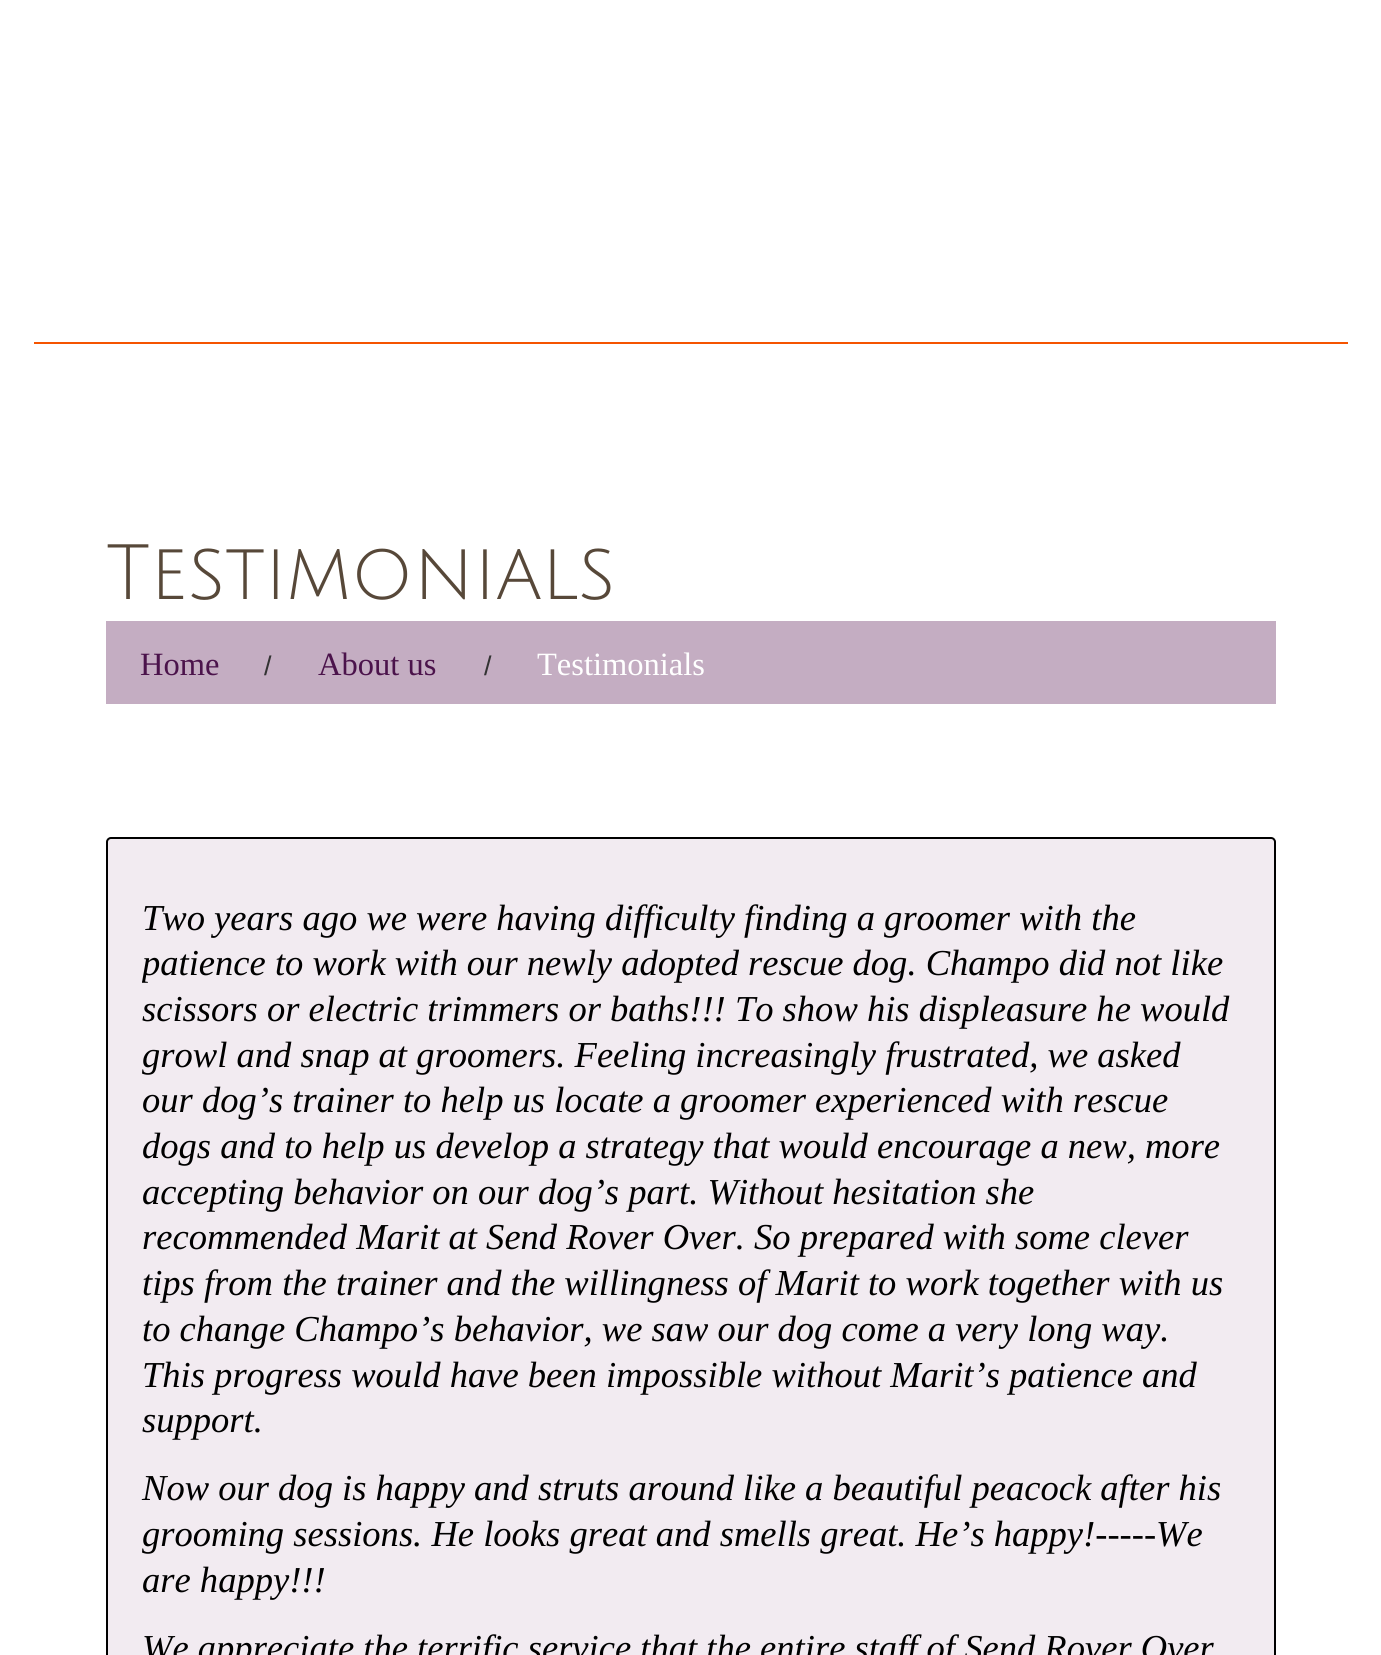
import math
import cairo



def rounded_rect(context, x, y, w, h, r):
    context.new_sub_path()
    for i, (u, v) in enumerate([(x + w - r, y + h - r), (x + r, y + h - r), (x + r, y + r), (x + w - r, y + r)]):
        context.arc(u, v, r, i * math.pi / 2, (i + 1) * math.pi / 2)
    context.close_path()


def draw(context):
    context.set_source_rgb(1, 1, 1)
    context.paint()
    context.set_source_rgb(245 / 255, 84 / 255, 0)
    context.rectangle(34, 342, 1314, 2)
    context.fill()
    context.set_source_rgb(196 / 255, 173 / 255, 194 / 255)
    context.rectangle(106, 621, 1170, 83)
    context.fill()
    context.set_source_rgb(242 / 255, 235 / 255, 241 / 255)
    rounded_rect(context, 107, 838, 1168, 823, 4)
    context.fill_preserve()
    context.set_source_rgb(0, 0, 0)
    context.stroke()
    context.select_font_face("Julius Sans One")
    context.set_font_size(76.5)
    context.set_source_rgb(87 / 255, 72 / 255, 57 / 255)
    context.move_to(106, 599)
    context.show_text("Testimonials")
    context.select_font_face("Liberation Serif")
    context.set_font_size(32.5)
    context.set_source_rgb(75 / 255, 19 / 255, 75 / 255)
    context.move_to(140, 675)
    context.show_text("Home")
    context.select_font_face("Liberation Sans")
    context.set_font_size(27)
    context.set_source_rgb(51 / 255, 51 / 255, 51 / 255)
    context.move_to(264, 675)
    context.show_text("/")
    context.select_font_face("Liberation Serif")
    context.set_font_size(32.5)
    context.set_source_rgb(75 / 255, 19 / 255, 75 / 255)
    context.move_to(318, 675)
    context.show_text("About us")
    context.select_font_face("Liberation Sans")
    context.set_font_size(27)
    context.set_source_rgb(51 / 255, 51 / 255, 51 / 255)
    context.move_to(484, 675)
    context.show_text("/")
    context.select_font_face("Liberation Serif")
    context.set_font_size(32.5)
    context.set_source_rgb(1, 1, 1)
    context.move_to(537, 675)
    context.show_text("Testimonials")
    context.select_font_face("Liberation Serif", cairo.FontSlant.ITALIC)
    context.set_font_size(36.55)
    context.set_source_rgb(0, 0, 0)
    context.move_to(142, 930)
    context.show_text("Two years ago we were having difficulty finding a groomer with the")
    context.save()
    context.rectangle(142, 873, 1098, 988)
    context.clip()
    context.move_to(142, 975)
    context.show_text("patience to work with our newly adopted rescue dog. Champo did not like")
    context.restore()
    context.move_to(142, 1021)
    context.show_text("scissors or electric trimmers or baths!!! To show his displeasure he would")
    context.save()
    context.rectangle(142, 873, 1098, 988)
    context.clip()
    context.move_to(142, 1067)
    context.show_text("growl and snap at groomers. Feeling increasingly frustrated, we asked")
    context.restore()
    context.move_to(142, 1112)
    context.show_text("our dog’s trainer to help us locate a groomer experienced with rescue")
    context.move_to(142, 1158)
    context.show_text("dogs and to help us develop a strategy that would encourage a new, more")
    context.move_to(142, 1204)
    context.show_text("accepting behavior on our dog’s part. Without hesitation she")
    context.move_to(142, 1249)
    context.show_text("recommended Marit at Send Rover Over. So prepared with some clever")
    context.move_to(142, 1295)
    context.show_text("tips from the trainer and the willingness of Marit to work together with us")
    context.move_to(142, 1341)
    context.show_text("to change Champo’s behavior, we saw our dog come a very long way.")
    context.move_to(142, 1387)
    context.show_text("This progress would have been impossible without Marit’s patience and")
    context.move_to(142, 1432)
    context.show_text("support.")
    context.move_to(142, 1500)
    context.show_text("Now our dog is happy and struts around like a beautiful peacock after his")
    context.save()
    context.rectangle(142, 873, 1098, 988)
    context.clip()
    context.move_to(142, 1546)
    context.show_text("grooming sessions. He looks great and smells great. He’s happy!-----We")
    context.restore()
    context.move_to(142, 1592)
    context.show_text("are happy!!!")
    context.move_to(142, 1660)
    context.show_text("We appreciate the terrific service that the entire staff of Send Rover Over")


surface = cairo.ImageSurface(cairo.Format.RGB24, 1381, 1655)
context = cairo.Context(surface)
options = cairo.FontOptions()
options.set_hint_metrics(cairo.HintMetrics.OFF)
options.set_hint_style(cairo.HintStyle.NONE)
context.set_font_options(options)
context.set_miter_limit(4)
draw(context)
surface.write_to_png("out.png")
